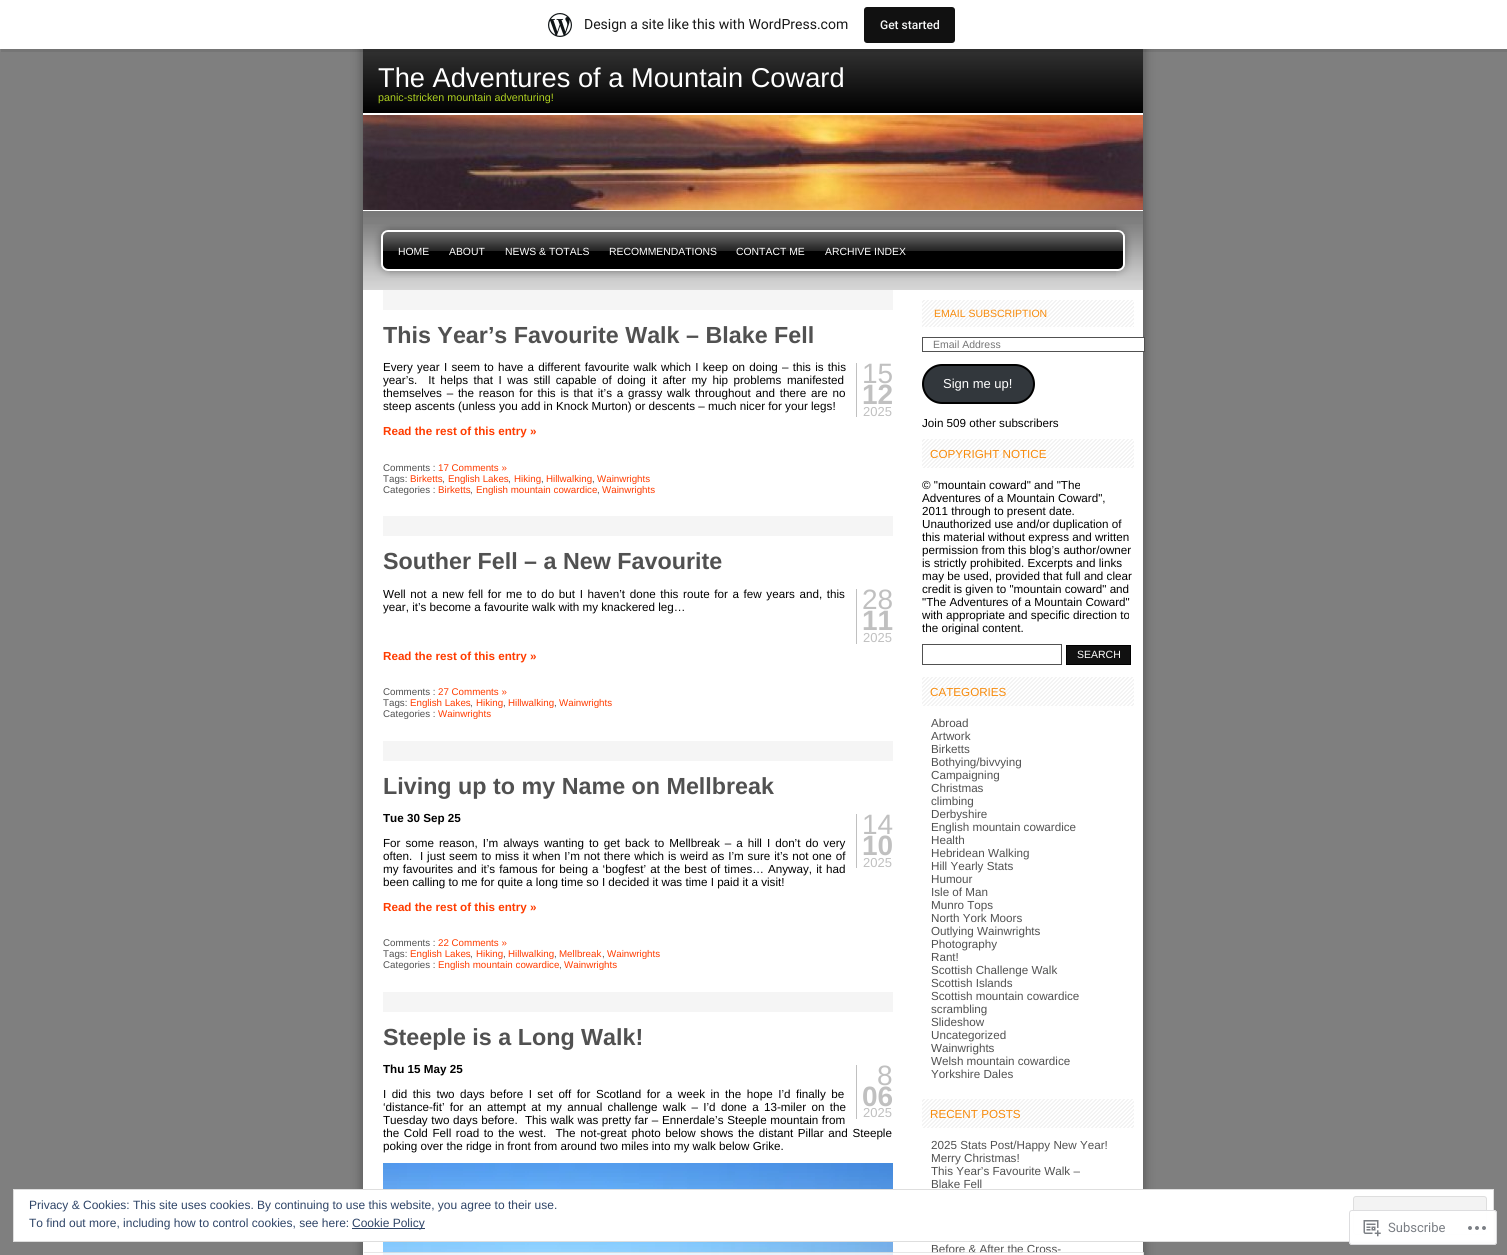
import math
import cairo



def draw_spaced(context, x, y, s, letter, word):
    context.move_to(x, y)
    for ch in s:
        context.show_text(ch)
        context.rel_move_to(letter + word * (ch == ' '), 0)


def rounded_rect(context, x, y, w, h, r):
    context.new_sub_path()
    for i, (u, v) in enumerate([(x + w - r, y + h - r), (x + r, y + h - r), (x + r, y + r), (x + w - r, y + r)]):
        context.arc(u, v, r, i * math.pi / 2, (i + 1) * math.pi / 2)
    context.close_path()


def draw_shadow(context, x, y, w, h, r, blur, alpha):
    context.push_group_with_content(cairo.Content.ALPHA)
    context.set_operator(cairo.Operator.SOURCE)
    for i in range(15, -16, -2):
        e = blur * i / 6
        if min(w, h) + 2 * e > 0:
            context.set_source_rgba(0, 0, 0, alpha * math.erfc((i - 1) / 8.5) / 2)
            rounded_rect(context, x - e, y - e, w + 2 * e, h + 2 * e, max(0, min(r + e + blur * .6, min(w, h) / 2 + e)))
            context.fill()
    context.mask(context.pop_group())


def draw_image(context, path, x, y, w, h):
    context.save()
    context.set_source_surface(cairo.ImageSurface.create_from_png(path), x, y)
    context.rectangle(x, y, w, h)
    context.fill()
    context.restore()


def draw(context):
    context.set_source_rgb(127 / 255, 127 / 255, 127 / 255)
    context.paint()
    context.set_source_rgb(90 / 255, 90 / 255, 90 / 255)
    draw_shadow(context, 361, 47, 784, 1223, 0, 5, 1)
    gradient = cairo.LinearGradient(753, 49, 753, 113)
    gradient.add_color_stop_rgba(0, 50 / 255, 50 / 255, 50 / 255, 1)
    gradient.add_color_stop_rgba(1, 0, 0, 0, 1)
    context.set_source(gradient)
    context.rectangle(363, 49, 780, 64)
    context.fill()
    context.set_source_rgba(0, 0, 0, 0.08)
    context.new_path()
    context.move_to(1, 49)
    context.line_to(1, 52)
    context.line_to(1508, 52)
    context.line_to(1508, 3)
    context.line_to(1507, 3)
    context.line_to(1507, 49)
    context.close_path()
    context.fill()
    context.set_source_rgb(1, 1, 1)
    context.rectangle(0, 0, 1507, 49)
    context.fill()
    draw_image(context, "images/1.png", 548, 13, 24, 24)
    context.set_source_rgb(17 / 255, 17 / 255, 17 / 255)
    rounded_rect(context, 864, 7, 91, 36, 3)
    context.fill()
    context.set_source_rgb(1, 1, 1)
    context.rectangle(363, 290, 780, 965)
    context.fill()
    draw_image(context, "images/6.png", 383, 1163, 510, 92)
    context.rectangle(13.5, 1189.5, 1480, 52)
    context.fill_preserve()
    context.set_source_rgb(222 / 255, 222 / 255, 222 / 255)
    context.set_line_width(1)
    context.stroke()
    context.set_source_rgb(243 / 255, 243 / 255, 243 / 255)
    rounded_rect(context, 1353.5, 1196.5, 133, 38, 2.5)
    context.fill_preserve()
    context.set_source_rgb(222 / 255, 222 / 255, 222 / 255)
    context.stroke()
    context.set_source_rgb(46 / 255, 68 / 255, 103 / 255)
    context.rectangle(352, 1228, 73, 1)
    context.fill()
    context.set_source_rgb(1, 1, 1)
    context.rectangle(363, 113, 780, 2)
    context.fill()
    draw_image(context, "images/2.png", 363, 115, 780, 95)
    draw_image(context, "images/3.png", 363, 211, 780, 79)
    context.rectangle(363, 210, 780, 1)
    context.fill()
    draw_image(context, "images/4.png", 363, 224, 27, 54)
    draw_image(context, "images/5.png", 1116, 224, 27, 54)
    context.set_source_rgb(245 / 255, 245 / 255, 245 / 255)
    context.rectangle(383, 290, 510, 20)
    context.fill()
    context.set_source_rgb(192 / 255, 192 / 255, 192 / 255)
    context.rectangle(856, 363, 1, 54)
    context.fill()
    context.set_source_rgb(245 / 255, 245 / 255, 245 / 255)
    context.rectangle(383, 516, 510, 20)
    context.fill()
    context.set_source_rgb(192 / 255, 192 / 255, 192 / 255)
    context.rectangle(856, 589, 1, 55)
    context.fill()
    context.set_source_rgb(245 / 255, 245 / 255, 245 / 255)
    context.rectangle(383, 741, 510, 20)
    context.fill()
    context.set_source_rgb(192 / 255, 192 / 255, 192 / 255)
    context.rectangle(856, 814, 1, 54)
    context.fill()
    context.set_source_rgb(245 / 255, 245 / 255, 245 / 255)
    context.rectangle(383, 992, 510, 20)
    context.fill()
    context.set_source_rgb(192 / 255, 192 / 255, 192 / 255)
    context.rectangle(856, 1065, 1, 54)
    context.fill()
    draw_image(context, "images/7.png", 922, 300, 212, 27)
    context.set_source_rgb(1, 1, 1)
    context.rectangle(1143, 338, 1, 13)
    context.fill()
    context.rectangle(922.5, 337.5, 222, 14)
    context.set_source_rgb(81 / 255, 81 / 255, 81 / 255)
    context.stroke()
    context.set_source_rgb(50 / 255, 55 / 255, 60 / 255)
    rounded_rect(context, 923, 365, 111, 38, 19)
    context.fill_preserve()
    context.set_source_rgb(0, 0, 0)
    context.set_line_width(2)
    context.stroke()
    draw_image(context, "images/8.png", 922, 439, 212, 29)
    context.rectangle(922.5, 644.5, 139, 20)
    context.set_source_rgb(81 / 255, 81 / 255, 81 / 255)
    context.set_line_width(1)
    context.stroke()
    context.set_source_rgb(17 / 255, 17 / 255, 17 / 255)
    context.rectangle(1066.5, 645.5, 64, 19)
    context.fill_preserve()
    context.set_source_rgb(0, 0, 0)
    context.stroke()
    draw_image(context, "images/8.png", 922, 677, 212, 29)
    draw_image(context, "images/8.png", 922, 1099, 212, 29)
    context.set_source_rgba(1, 1, 1, 0.98)
    rounded_rect(context, 1349, 1210, 148, 35, 3)
    context.fill()
    rounded_rect(context, 1349.5, 1210.5, 147, 34, 2.5)
    context.set_source_rgba(220 / 255, 220 / 255, 222 / 255, 0.98)
    context.stroke()
    draw_image(context, "images/9.png", 1363, 1220, 18, 17)
    draw_image(context, "images/10.png", 1468, 1226, 18, 4)
    context.select_font_face("Roboto")
    context.set_font_size(14)
    context.set_source_rgb(23 / 255, 23 / 255, 23 / 255)
    context.move_to(584, 29)
    context.show_text("Design a site like this with WordPress.com")
    context.select_font_face("Roboto Medium")
    context.set_font_size(12)
    context.set_source_rgb(246 / 255, 247 / 255, 247 / 255)
    context.move_to(880, 29)
    context.show_text("Get started")
    context.select_font_face("Liberation Sans")
    context.set_source_rgb(46 / 255, 68 / 255, 103 / 255)
    context.move_to(29, 1209)
    context.show_text("Privacy & Cookies: This site uses cookies. By continuing to use this website, you agree to their use.")
    context.move_to(29, 1227)
    context.show_text("To find out more, including how to control cookies, see here:")
    context.move_to(352, 1227)
    context.show_text("Cookie Policy")
    context.set_font_size(27.25)
    context.set_source_rgb(1, 1, 1)
    context.move_to(378, 87)
    context.show_text("The Adventures of a Mountain Coward")
    context.set_font_size(10.75)
    context.set_source_rgb(173 / 255, 207 / 255, 32 / 255)
    context.move_to(378, 101)
    context.show_text("panic-stricken mountain adventuring!")
    context.set_font_size(10.4)
    context.set_source_rgb(1, 1, 1)
    context.move_to(398, 255)
    context.show_text("HOME")
    context.move_to(449, 255)
    context.show_text("ABOUT")
    context.move_to(505, 255)
    context.show_text("NEWS & TOTALS")
    context.move_to(609, 255)
    context.show_text("RECOMMENDATIONS")
    context.move_to(736, 255)
    context.show_text("CONTACT ME")
    context.move_to(825, 255)
    context.show_text("ARCHIVE INDEX")
    context.select_font_face("Liberation Sans", cairo.FontSlant.NORMAL, cairo.FontWeight.BOLD)
    context.set_font_size(23.3)
    context.set_source_rgb(81 / 255, 81 / 255, 81 / 255)
    context.move_to(383, 343)
    context.show_text("This Year’s Favourite Walk – Blake Fell")
    context.select_font_face("Liberation Sans")
    context.set_font_size(11.65)
    context.set_source_rgb(0, 0, 0)
    draw_spaced(context, 383, 371, "Every year I seem to have a different favourite walk which I keep on doing – this is this", 0, 1)
    draw_spaced(context, 383, 384, "year’s.  It helps that I was still capable of doing it after my hip problems manifested", 0, 2.25)
    draw_spaced(context, 383, 397, "themselves – the reason for this is that it’s a grassy walk throughout and there are no", 0, 1.5)
    context.move_to(383, 410)
    context.show_text("steep ascents (unless you add in Knock Murton) or descents – much nicer for your legs!")
    context.select_font_face("Liberation Sans", cairo.FontSlant.NORMAL, cairo.FontWeight.BOLD)
    context.set_source_rgb(1, 60 / 255, 0)
    context.move_to(383, 435)
    context.show_text("Read the rest of this entry »")
    context.select_font_face("Liberation Sans")
    context.set_font_size(28)
    context.set_source_rgb(192 / 255, 192 / 255, 192 / 255)
    context.move_to(862, 383)
    context.show_text("15")
    context.select_font_face("Liberation Sans", cairo.FontSlant.NORMAL, cairo.FontWeight.BOLD)
    context.move_to(862, 404)
    context.show_text("12")
    context.select_font_face("Liberation Sans")
    context.set_font_size(13)
    context.move_to(863, 416)
    context.show_text("2025")
    context.set_font_size(9.75)
    context.set_source_rgb(81 / 255, 81 / 255, 81 / 255)
    context.move_to(383, 471)
    context.show_text("Comments :")
    context.set_source_rgb(1, 60 / 255, 0)
    context.move_to(438, 471)
    context.show_text("17 Comments »")
    context.set_source_rgb(81 / 255, 81 / 255, 81 / 255)
    context.move_to(383, 482)
    context.show_text("Tags:")
    context.set_source_rgb(1, 60 / 255, 0)
    context.move_to(410, 482)
    context.show_text("Birketts")
    context.set_source_rgb(81 / 255, 81 / 255, 81 / 255)
    context.move_to(442, 482)
    context.show_text(",")
    context.set_source_rgb(1, 60 / 255, 0)
    context.move_to(448, 482)
    context.show_text("English Lakes")
    context.set_source_rgb(81 / 255, 81 / 255, 81 / 255)
    context.move_to(508, 482)
    context.show_text(",")
    context.set_source_rgb(1, 60 / 255, 0)
    context.move_to(514, 482)
    context.show_text("Hiking")
    context.set_source_rgb(81 / 255, 81 / 255, 81 / 255)
    context.move_to(541, 482)
    context.show_text(",")
    context.set_source_rgb(1, 60 / 255, 0)
    context.move_to(546, 482)
    context.show_text("Hillwalking")
    context.set_source_rgb(81 / 255, 81 / 255, 81 / 255)
    context.move_to(592, 482)
    context.show_text(",")
    context.set_source_rgb(1, 60 / 255, 0)
    context.move_to(597, 482)
    context.show_text("Wainwrights")
    context.set_source_rgb(81 / 255, 81 / 255, 81 / 255)
    context.move_to(383, 493)
    context.show_text("Categories :")
    context.set_source_rgb(1, 60 / 255, 0)
    context.move_to(438, 493)
    context.show_text("Birketts")
    context.set_source_rgb(81 / 255, 81 / 255, 81 / 255)
    context.move_to(470, 493)
    context.show_text(",")
    context.set_source_rgb(1, 60 / 255, 0)
    context.move_to(476, 493)
    context.show_text("English mountain cowardice")
    context.set_source_rgb(81 / 255, 81 / 255, 81 / 255)
    context.move_to(597, 493)
    context.show_text(",")
    context.set_source_rgb(1, 60 / 255, 0)
    context.move_to(602, 493)
    context.show_text("Wainwrights")
    context.select_font_face("Liberation Sans", cairo.FontSlant.NORMAL, cairo.FontWeight.BOLD)
    context.set_font_size(23.3)
    context.set_source_rgb(81 / 255, 81 / 255, 81 / 255)
    context.move_to(383, 569)
    context.show_text("Souther Fell – a New Favourite")
    context.select_font_face("Liberation Sans")
    context.set_font_size(11.65)
    context.set_source_rgb(0, 0, 0)
    draw_spaced(context, 383, 598, "Well not a new fell for me to do but I haven’t done this route for a few years and, this", 0, 1.4)
    context.move_to(383, 611)
    context.show_text("year, it’s become a favourite walk with my knackered leg…")
    context.select_font_face("Liberation Sans", cairo.FontSlant.NORMAL, cairo.FontWeight.BOLD)
    context.set_source_rgb(1, 60 / 255, 0)
    context.move_to(383, 660)
    context.show_text("Read the rest of this entry »")
    context.select_font_face("Liberation Sans")
    context.set_font_size(28)
    context.set_source_rgb(192 / 255, 192 / 255, 192 / 255)
    context.move_to(862, 609)
    context.show_text("28")
    context.select_font_face("Liberation Sans", cairo.FontSlant.NORMAL, cairo.FontWeight.BOLD)
    context.move_to(862, 630)
    context.show_text("11")
    context.select_font_face("Liberation Sans")
    context.set_font_size(13)
    context.move_to(863, 642)
    context.show_text("2025")
    context.set_font_size(9.75)
    context.set_source_rgb(81 / 255, 81 / 255, 81 / 255)
    context.move_to(383, 695)
    context.show_text("Comments :")
    context.set_source_rgb(1, 60 / 255, 0)
    context.move_to(438, 695)
    context.show_text("27 Comments »")
    context.set_source_rgb(81 / 255, 81 / 255, 81 / 255)
    context.move_to(383, 706)
    context.show_text("Tags:")
    context.set_source_rgb(1, 60 / 255, 0)
    context.move_to(410, 706)
    context.show_text("English Lakes")
    context.set_source_rgb(81 / 255, 81 / 255, 81 / 255)
    context.move_to(470, 706)
    context.show_text(",")
    context.set_source_rgb(1, 60 / 255, 0)
    context.move_to(476, 706)
    context.show_text("Hiking")
    context.set_source_rgb(81 / 255, 81 / 255, 81 / 255)
    context.move_to(503, 706)
    context.show_text(",")
    context.set_source_rgb(1, 60 / 255, 0)
    context.move_to(508, 706)
    context.show_text("Hillwalking")
    context.set_source_rgb(81 / 255, 81 / 255, 81 / 255)
    context.move_to(554, 706)
    context.show_text(",")
    context.set_source_rgb(1, 60 / 255, 0)
    context.move_to(559, 706)
    context.show_text("Wainwrights")
    context.set_source_rgb(81 / 255, 81 / 255, 81 / 255)
    context.move_to(383, 717)
    context.show_text("Categories :")
    context.set_source_rgb(1, 60 / 255, 0)
    context.move_to(438, 717)
    context.show_text("Wainwrights")
    context.select_font_face("Liberation Sans", cairo.FontSlant.NORMAL, cairo.FontWeight.BOLD)
    context.set_font_size(23.3)
    context.set_source_rgb(81 / 255, 81 / 255, 81 / 255)
    context.move_to(383, 794)
    context.show_text("Living up to my Name on Mellbreak")
    context.set_font_size(11.65)
    context.set_source_rgb(0, 0, 0)
    context.move_to(383, 822)
    context.show_text("Tue 30 Sep 25")
    context.select_font_face("Liberation Sans")
    draw_spaced(context, 383, 847, "For some reason, I’m always wanting to get back to Mellbreak – a hill I don’t do very", 0, 1.75)
    draw_spaced(context, 383, 860, "often.  I just seem to miss it when I’m not there which is weird as I’m sure it’s not one of", 0, 0.65)
    draw_spaced(context, 383, 873, "my favourites and it’s famous for being a ‘bogfest’ at the best of times… Anyway, it had", 0, 0.9)
    context.move_to(383, 886)
    context.show_text("been calling to me for quite a long time so I decided it was time I paid it a visit!")
    context.select_font_face("Liberation Sans", cairo.FontSlant.NORMAL, cairo.FontWeight.BOLD)
    context.set_source_rgb(1, 60 / 255, 0)
    context.move_to(383, 911)
    context.show_text("Read the rest of this entry »")
    context.select_font_face("Liberation Sans")
    context.set_font_size(28)
    context.set_source_rgb(192 / 255, 192 / 255, 192 / 255)
    context.move_to(862, 834)
    context.show_text("14")
    context.select_font_face("Liberation Sans", cairo.FontSlant.NORMAL, cairo.FontWeight.BOLD)
    context.move_to(862, 855)
    context.show_text("10")
    context.select_font_face("Liberation Sans")
    context.set_font_size(13)
    context.move_to(863, 867)
    context.show_text("2025")
    context.set_font_size(9.75)
    context.set_source_rgb(81 / 255, 81 / 255, 81 / 255)
    context.move_to(383, 946)
    context.show_text("Comments :")
    context.set_source_rgb(1, 60 / 255, 0)
    context.move_to(438, 946)
    context.show_text("22 Comments »")
    context.set_source_rgb(81 / 255, 81 / 255, 81 / 255)
    context.move_to(383, 957)
    context.show_text("Tags:")
    context.set_source_rgb(1, 60 / 255, 0)
    context.move_to(410, 957)
    context.show_text("English Lakes")
    context.set_source_rgb(81 / 255, 81 / 255, 81 / 255)
    context.move_to(470, 957)
    context.show_text(",")
    context.set_source_rgb(1, 60 / 255, 0)
    context.move_to(476, 957)
    context.show_text("Hiking")
    context.set_source_rgb(81 / 255, 81 / 255, 81 / 255)
    context.move_to(503, 957)
    context.show_text(",")
    context.set_source_rgb(1, 60 / 255, 0)
    context.move_to(508, 957)
    context.show_text("Hillwalking")
    context.set_source_rgb(81 / 255, 81 / 255, 81 / 255)
    context.move_to(554, 957)
    context.show_text(",")
    context.set_source_rgb(1, 60 / 255, 0)
    context.move_to(559, 957)
    context.show_text("Mellbreak")
    context.set_source_rgb(81 / 255, 81 / 255, 81 / 255)
    context.move_to(602, 957)
    context.show_text(",")
    context.set_source_rgb(1, 60 / 255, 0)
    context.move_to(607, 957)
    context.show_text("Wainwrights")
    context.set_source_rgb(81 / 255, 81 / 255, 81 / 255)
    context.move_to(383, 968)
    context.show_text("Categories :")
    context.set_source_rgb(1, 60 / 255, 0)
    context.move_to(438, 968)
    context.show_text("English mountain cowardice")
    context.set_source_rgb(81 / 255, 81 / 255, 81 / 255)
    context.move_to(559, 968)
    context.show_text(",")
    context.set_source_rgb(1, 60 / 255, 0)
    context.move_to(564, 968)
    context.show_text("Wainwrights")
    context.select_font_face("Liberation Sans", cairo.FontSlant.NORMAL, cairo.FontWeight.BOLD)
    context.set_font_size(23.3)
    context.set_source_rgb(81 / 255, 81 / 255, 81 / 255)
    context.move_to(383, 1045)
    context.show_text("Steeple is a Long Walk!")
    context.set_font_size(11.65)
    context.set_source_rgb(0, 0, 0)
    context.move_to(383, 1073)
    context.show_text("Thu 15 May 25")
    context.select_font_face("Liberation Sans")
    draw_spaced(context, 383, 1098, "I did this two days before I set off for Scotland for a week in the hope I’d finally be", 0, 2.25)
    draw_spaced(context, 383, 1111, "‘distance-fit’ for an attempt at my annual challenge walk – I’d done a 13-miler on the", 0, 2.1)
    draw_spaced(context, 383, 1124, "Tuesday two days before.  This walk was pretty far – Ennerdale’s Steeple mountain from", 0, 0.4)
    draw_spaced(context, 383, 1137, "the Cold Fell road to the west.  The not-great photo below shows the distant Pillar and Steeple", 0, 1.4)
    context.move_to(383, 1150)
    context.show_text("poking over the ridge in front from around two miles into my walk below Grike.")
    context.set_font_size(28)
    context.set_source_rgb(192 / 255, 192 / 255, 192 / 255)
    context.move_to(877, 1085)
    context.show_text("8")
    context.select_font_face("Liberation Sans", cairo.FontSlant.NORMAL, cairo.FontWeight.BOLD)
    context.move_to(862, 1106)
    context.show_text("06")
    context.select_font_face("Liberation Sans")
    context.set_font_size(13)
    context.move_to(863, 1117)
    context.show_text("2025")
    context.set_font_size(10.5)
    context.set_source_rgb(247 / 255, 139 / 255, 12 / 255)
    context.move_to(934, 317)
    context.show_text("EMAIL SUBSCRIPTION")
    context.set_source_rgb(117 / 255, 117 / 255, 117 / 255)
    context.move_to(933, 348)
    context.show_text("Email Address")
    context.set_font_size(13)
    context.set_source_rgb(1, 1, 1)
    context.move_to(943, 388)
    context.show_text("Sign me up!")
    context.set_font_size(11.65)
    context.set_source_rgb(0, 0, 0)
    context.move_to(922, 427)
    context.show_text("Join 509 other subscribers")
    context.set_source_rgb(247 / 255, 139 / 255, 12 / 255)
    context.move_to(930, 458)
    context.show_text("COPYRIGHT NOTICE")
    context.set_source_rgb(0, 0, 0)
    context.move_to(922, 489)
    context.show_text("© \"mountain coward\" and \"The")
    context.move_to(922, 502)
    context.show_text("Adventures of a Mountain Coward\",")
    context.move_to(922, 515)
    context.show_text("2011 through to present date.")
    context.move_to(922, 528)
    context.show_text("Unauthorized use and/or duplication of")
    context.move_to(922, 541)
    context.show_text("this material without express and written")
    context.move_to(922, 554)
    context.show_text("permission from this blog’s author/owner")
    context.move_to(922, 567)
    context.show_text("is strictly prohibited. Excerpts and links")
    context.move_to(922, 580)
    context.show_text("may be used, provided that full and clear")
    context.move_to(922, 593)
    context.show_text("credit is given to \"mountain coward\" and")
    context.move_to(922, 606)
    context.show_text("\"The Adventures of a Mountain Coward\"")
    context.move_to(922, 619)
    context.show_text("with appropriate and specific direction to")
    context.move_to(922, 632)
    context.show_text("the original content.")
    context.set_font_size(10.5)
    context.set_source_rgb(1, 1, 1)
    context.move_to(1077, 658)
    context.show_text("SEARCH")
    context.set_font_size(11.65)
    context.set_source_rgb(247 / 255, 139 / 255, 12 / 255)
    context.move_to(930, 696)
    context.show_text("CATEGORIES")
    context.set_source_rgb(81 / 255, 81 / 255, 81 / 255)
    context.move_to(931, 727)
    context.show_text("Abroad")
    context.move_to(931, 740)
    context.show_text("Artwork")
    context.move_to(931, 753)
    context.show_text("Birketts")
    context.move_to(931, 766)
    context.show_text("Bothying/bivvying")
    context.move_to(931, 779)
    context.show_text("Campaigning")
    context.move_to(931, 792)
    context.show_text("Christmas")
    context.move_to(931, 805)
    context.show_text("climbing")
    context.move_to(931, 818)
    context.show_text("Derbyshire")
    context.move_to(931, 831)
    context.show_text("English mountain cowardice")
    context.move_to(931, 844)
    context.show_text("Health")
    context.move_to(931, 857)
    context.show_text("Hebridean Walking")
    context.move_to(931, 870)
    context.show_text("Hill Yearly Stats")
    context.move_to(931, 883)
    context.show_text("Humour")
    context.move_to(931, 896)
    context.show_text("Isle of Man")
    context.move_to(931, 909)
    context.show_text("Munro Tops")
    context.move_to(931, 922)
    context.show_text("North York Moors")
    context.move_to(931, 935)
    context.show_text("Outlying Wainwrights")
    context.move_to(931, 948)
    context.show_text("Photography")
    context.move_to(931, 961)
    context.show_text("Rant!")
    context.move_to(931, 974)
    context.show_text("Scottish Challenge Walk")
    context.move_to(931, 987)
    context.show_text("Scottish Islands")
    context.move_to(931, 1000)
    context.show_text("Scottish mountain cowardice")
    context.move_to(931, 1013)
    context.show_text("scrambling")
    context.move_to(931, 1026)
    context.show_text("Slideshow")
    context.move_to(931, 1039)
    context.show_text("Uncategorized")
    context.move_to(931, 1052)
    context.show_text("Wainwrights")
    context.move_to(931, 1065)
    context.show_text("Welsh mountain cowardice")
    context.move_to(931, 1078)
    context.show_text("Yorkshire Dales")
    context.set_source_rgb(247 / 255, 139 / 255, 12 / 255)
    context.move_to(930, 1118)
    context.show_text("RECENT POSTS")
    context.set_source_rgb(81 / 255, 81 / 255, 81 / 255)
    context.move_to(931, 1149)
    context.show_text("2025 Stats Post/Happy New Year!")
    context.move_to(931, 1162)
    context.show_text("Merry Christmas!")
    context.move_to(931, 1175)
    context.show_text("This Year’s Favourite Walk –")
    context.move_to(931, 1188)
    context.show_text("Blake Fell")
    context.move_to(931, 1253)
    context.show_text("Before & After the Cross-")
    context.select_font_face("Roboto")
    context.set_font_size(13)
    context.set_source_rgb(122 / 255, 126 / 255, 132 / 255)
    context.move_to(1388, 1232)
    context.show_text("Subscribe")
    context.set_source_rgba(1, 1, 1, 0.8)
    context.rectangle(383, 1252, 761, 3)
    context.fill()
    context.set_source_rgba(0, 0, 0, 0.1)
    context.rectangle(364, 1252, 780, 1)
    context.fill()


surface = cairo.ImageSurface(cairo.Format.RGB24, 1507, 1255)
context = cairo.Context(surface)
options = cairo.FontOptions()
options.set_hint_metrics(cairo.HintMetrics.OFF)
options.set_hint_style(cairo.HintStyle.NONE)
context.set_font_options(options)
context.set_miter_limit(4)
draw(context)
surface.write_to_png("out.png")
